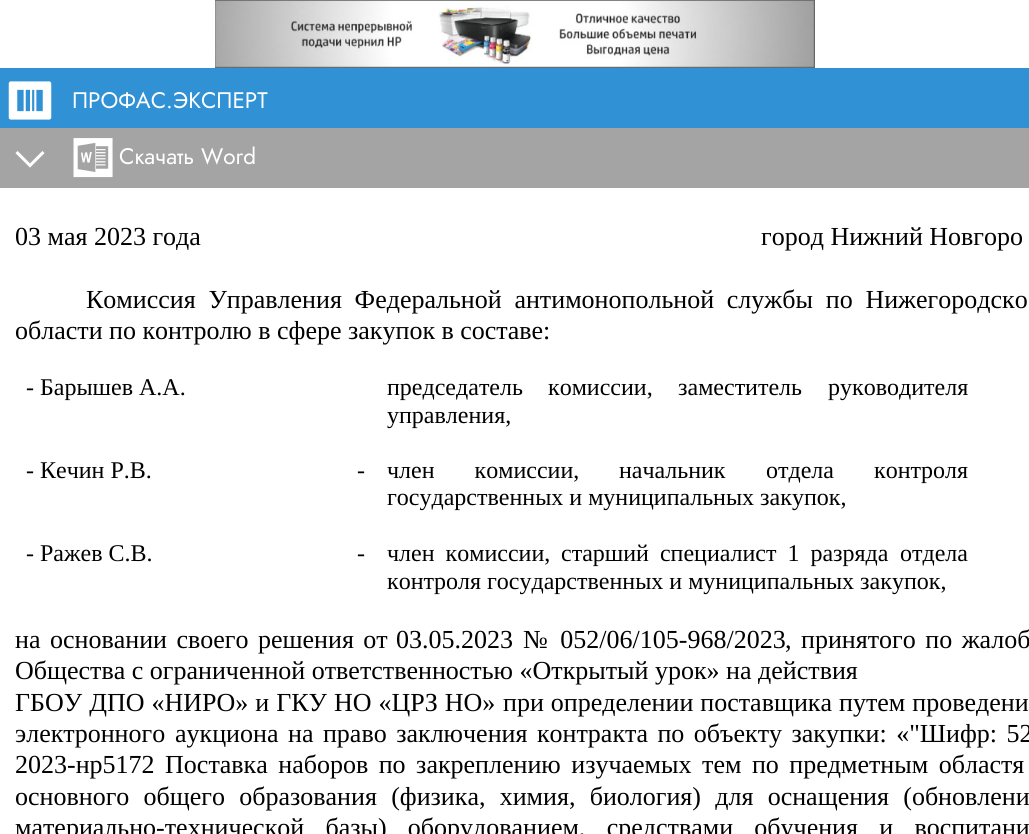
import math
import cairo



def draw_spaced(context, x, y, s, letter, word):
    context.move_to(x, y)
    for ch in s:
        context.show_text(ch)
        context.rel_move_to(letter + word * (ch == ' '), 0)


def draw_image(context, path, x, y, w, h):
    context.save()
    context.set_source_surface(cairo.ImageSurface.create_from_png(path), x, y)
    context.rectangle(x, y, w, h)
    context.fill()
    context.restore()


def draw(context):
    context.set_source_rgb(1, 1, 1)
    context.paint()
    draw_image(context, "images/1.png", 215, 0, 600, 68)
    context.set_source_rgb(48 / 255, 145 / 255, 213 / 255)
    context.rectangle(0, 68, 1029, 60)
    context.fill()
    draw_image(context, "images/2.png", 8, 81, 44, 39)
    context.set_source_rgb(164 / 255, 164 / 255, 164 / 255)
    context.rectangle(0, 128, 1029, 60)
    context.fill()
    context.new_path()
    context.move_to(43.5, 152)
    context.line_to(30, 165.5)
    context.line_to(16.5, 152)
    context.set_source_rgb(1, 1, 1)
    context.set_line_width(3)
    context.stroke()
    draw_image(context, "images/3.png", 73, 138, 40, 40)
    context.select_font_face("Jost")
    context.set_font_size(22.5)
    context.move_to(72, 108)
    context.show_text("ПРОФАС.ЭКСПЕРТ")
    context.move_to(119, 164)
    context.show_text("Скачать Word")
    context.select_font_face("Liberation Serif")
    context.set_font_size(26)
    context.set_source_rgb(0, 0, 0)
    context.move_to(15, 245)
    context.show_text("03 мая 2023 года")
    context.move_to(761, 245)
    context.show_text("город Нижний Новгоро")
    draw_spaced(context, 86, 308, "Комиссия Управления Федеральной антимонопольной службы по Нижегородско", 0, 6.25)
    context.move_to(15, 339)
    context.show_text("области по контролю в сфере закупок в составе:")
    context.set_font_size(24)
    context.move_to(26, 395)
    context.show_text("- Барышев А.А.")
    context.move_to(387, 395)
    context.show_text("председатель")
    context.move_to(548, 395)
    context.show_text("комиссии,")
    context.move_to(678, 395)
    context.show_text("заместитель")
    context.move_to(828, 395)
    context.show_text("руководителя")
    context.move_to(387, 423)
    context.show_text("управления,")
    context.move_to(26, 478)
    context.show_text("- Кечин Р.В.")
    context.move_to(357, 478)
    context.show_text("-")
    draw_spaced(context, 387, 478, "член комиссии,", 0, 34)
    context.move_to(619, 478)
    context.show_text("начальник")
    draw_spaced(context, 766, 478, "отдела контроля", 0, 34)
    context.move_to(387, 505)
    context.show_text("государственных и муниципальных закупок,")
    context.move_to(26, 561)
    context.show_text("- Ражев С.В.")
    context.move_to(357, 561)
    context.show_text("-")
    draw_spaced(context, 387, 561, "член комиссии,", 0, 5)
    draw_spaced(context, 561, 561, "старший специалист 1 разряда", 0, 5)
    context.move_to(900, 561)
    context.show_text("отдела")
    context.move_to(387, 589)
    context.show_text("контроля государственных и муниципальных закупок,")
    context.set_font_size(26)
    draw_spaced(context, 15, 648, "на основании своего решения от", 0, 3)
    context.move_to(396, 648)
    context.show_text("03.05.2023")
    draw_spaced(context, 523, 648, "№ 052/06/105-968/2023", 0, 6)
    draw_spaced(context, 785, 648, ", принятого по жалоб", 0, 3)
    context.move_to(15, 679)
    context.show_text("Общества с ограниченной ответственностью «Открытый урок» на действия")
    draw_spaced(context, 15, 711, "ГБОУ ДПО «НИРО» и ГКУ НО «ЦРЗ НО»", 0, 0.5)
    draw_spaced(context, 503, 711, "при определении поставщика путем проведени", 0, 0.5)
    context.move_to(15, 742)
    context.show_text("электронного")
    context.move_to(175, 742)
    context.show_text("аукциона")
    draw_spaced(context, 288, 742, "на право заключения контракта по объекту закупки: «\"Шифр: 52", 0, 3)
    draw_spaced(context, 15, 773, "2023-нр5172 Поставка наборов по закреплению изучаемых тем по предметным областя", 0, 4)
    draw_spaced(context, 15, 805, "основного общего образования (физика, химия, биология) для оснащения (обновлени", 0, 7.75)
    draw_spaced(context, 15, 836, "материально-технической базы) оборудованием, средствами обучения и воспитани", 0, 14.75)


surface = cairo.ImageSurface(cairo.Format.RGB24, 1029, 834)
context = cairo.Context(surface)
options = cairo.FontOptions()
options.set_hint_metrics(cairo.HintMetrics.OFF)
options.set_hint_style(cairo.HintStyle.NONE)
context.set_font_options(options)
context.set_miter_limit(4)
draw(context)
surface.write_to_png("out.png")
